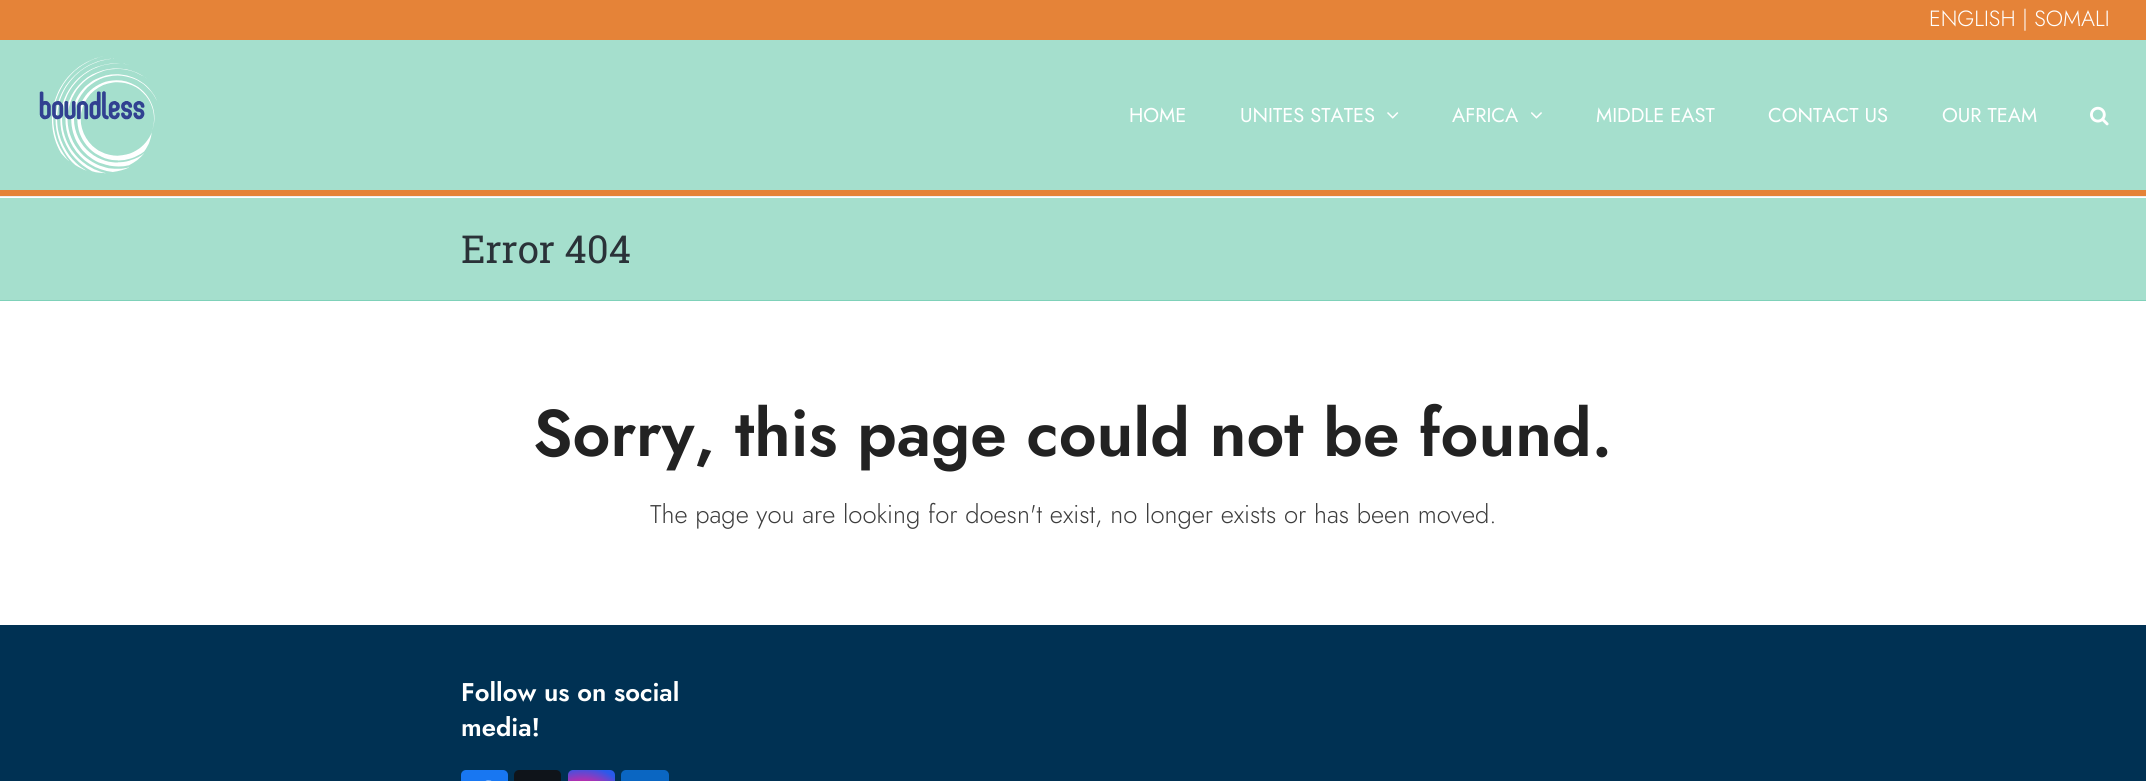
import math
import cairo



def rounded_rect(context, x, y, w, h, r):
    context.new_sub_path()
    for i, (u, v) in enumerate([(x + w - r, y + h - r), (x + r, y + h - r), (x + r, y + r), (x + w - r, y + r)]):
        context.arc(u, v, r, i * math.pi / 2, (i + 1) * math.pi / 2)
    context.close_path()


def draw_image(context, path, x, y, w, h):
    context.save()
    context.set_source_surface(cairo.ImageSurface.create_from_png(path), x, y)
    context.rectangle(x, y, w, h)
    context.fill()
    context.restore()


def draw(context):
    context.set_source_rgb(1, 1, 1)
    context.paint()
    context.set_source_rgb(229 / 255, 131 / 255, 56 / 255)
    context.rectangle(0, 0, 2146, 40)
    context.fill()
    context.set_source_rgb(165 / 255, 223 / 255, 205 / 255)
    context.rectangle(0, 40, 2146, 150)
    context.fill()
    context.set_source_rgb(229 / 255, 131 / 255, 56 / 255)
    context.rectangle(0, 190, 2146, 6)
    context.fill()
    draw_image(context, "images/1.png", 39, 56, 118, 118)
    draw_image(context, "images/2.png", 1387, 112, 12, 7)
    draw_image(context, "images/3.png", 1531, 112, 11, 7)
    draw_image(context, "images/4.png", 2090, 106, 19, 20)
    context.set_source_rgb(165 / 255, 223 / 255, 205 / 255)
    context.rectangle(0, 198, 2146, 102)
    context.fill()
    context.set_source_rgb(238 / 255, 238 / 255, 238 / 255)
    context.rectangle(0, 196, 2146, 1)
    context.fill()
    context.set_source_rgb(127 / 255, 209 / 255, 185 / 255)
    context.rectangle(0, 300, 2146, 1)
    context.fill()
    context.set_source_rgb(0, 49 / 255, 83 / 255)
    context.rectangle(0, 625, 2146, 156)
    context.fill()
    context.set_source_rgb(24 / 255, 119 / 255, 242 / 255)
    rounded_rect(context, 461, 770, 47, 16, 5)
    context.fill()
    draw_image(context, "images/5.png", 485, 780, 7, 1)
    context.set_source_rgb(15 / 255, 20 / 255, 26 / 255)
    rounded_rect(context, 514, 770, 47, 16, 5)
    context.fill()
    gradient = cairo.RadialGradient(582, 821, 0, 582, 821, 61)
    gradient.add_color_stop_rgba(0, 253 / 255, 244 / 255, 151 / 255, 1)
    gradient.add_color_stop_rgba(0.05, 253 / 255, 244 / 255, 151 / 255, 1)
    gradient.add_color_stop_rgba(0.45, 253 / 255, 89 / 255, 73 / 255, 1)
    gradient.add_color_stop_rgba(0.6, 214 / 255, 36 / 255, 159 / 255, 1)
    gradient.add_color_stop_rgba(0.9, 40 / 255, 90 / 255, 235 / 255, 1)
    context.set_source(gradient)
    rounded_rect(context, 568, 770, 47, 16, 5)
    context.fill()
    context.set_source_rgb(10 / 255, 102 / 255, 194 / 255)
    rounded_rect(context, 621, 770, 48, 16, 5)
    context.fill()
    context.select_font_face("Jost Light")
    context.set_font_size(22)
    context.set_source_rgb(1, 1, 1)
    context.move_to(1929, 26)
    context.show_text("ENGLISH | SOMALI")
    context.select_font_face("Jost")
    context.set_font_size(20)
    context.move_to(1129, 122)
    context.show_text("HOME")
    context.move_to(1240, 122)
    context.show_text("UNITES STATES")
    context.move_to(1452, 122)
    context.show_text("AFRICA")
    context.move_to(1596, 122)
    context.show_text("MIDDLE EAST")
    context.move_to(1768, 122)
    context.show_text("CONTACT US")
    context.move_to(1942, 122)
    context.show_text("OUR TEAM")
    context.select_font_face("Roboto Slab")
    context.set_font_size(38.5)
    context.set_source_rgb(42 / 255, 50 / 255, 56 / 255)
    context.move_to(461, 263)
    context.show_text("Error 404")
    context.select_font_face("Jost SemiBold")
    context.set_font_size(65.75)
    context.set_source_rgb(34 / 255, 34 / 255, 34 / 255)
    context.move_to(533, 456)
    context.show_text("Sorry, this page could not be found.")
    context.select_font_face("Jost Light")
    context.set_font_size(25.6)
    context.set_source_rgb(61 / 255, 61 / 255, 61 / 255)
    context.move_to(650, 523)
    context.show_text("The page you are looking for doesn't exist, no longer exists or has been moved.")
    context.select_font_face("Jost SemiBold")
    context.set_source_rgb(1, 1, 1)
    context.move_to(461, 701)
    context.show_text("Follow us on social")
    context.move_to(461, 736)
    context.show_text("media!")


surface = cairo.ImageSurface(cairo.Format.RGB24, 2146, 781)
context = cairo.Context(surface)
options = cairo.FontOptions()
options.set_hint_metrics(cairo.HintMetrics.OFF)
options.set_hint_style(cairo.HintStyle.NONE)
context.set_font_options(options)
context.set_miter_limit(4)
draw(context)
surface.write_to_png("out.png")
